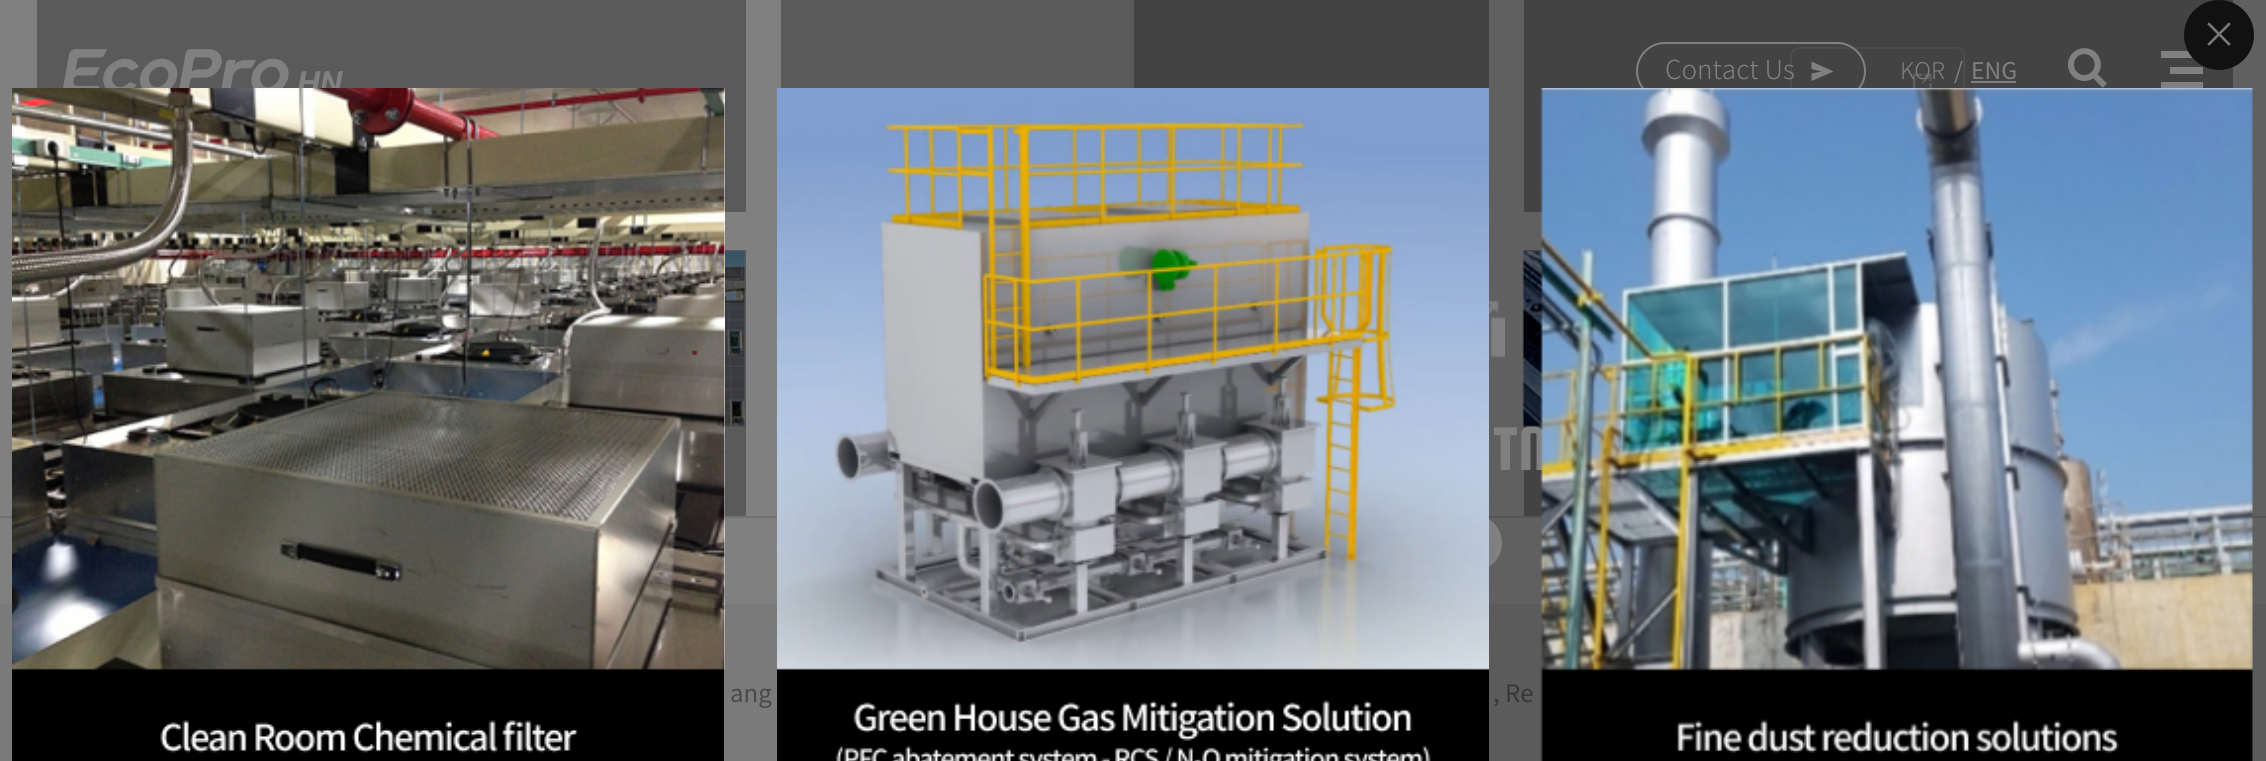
import math
import cairo



def rounded_rect(context, x, y, w, h, r):
    context.new_sub_path()
    for i, (u, v) in enumerate([(x + w - r, y + h - r), (x + r, y + h - r), (x + r, y + r), (x + w - r, y + r)]):
        context.arc(u, v, r, i * math.pi / 2, (i + 1) * math.pi / 2)
    context.close_path()


def draw_image(context, path, x, y, w, h):
    context.save()
    context.set_source_surface(cairo.ImageSurface.create_from_png(path), x, y)
    context.rectangle(x, y, w, h)
    context.fill()
    context.restore()


def draw(context):
    context.set_source_rgb(128 / 255, 128 / 255, 128 / 255)
    context.paint()
    context.set_source_rgb(90 / 255, 90 / 255, 90 / 255)
    context.rectangle(1524, 0, 709, 212)
    context.fill()
    context.set_source_rgb(113 / 255, 113 / 255, 113 / 255)
    context.rectangle(0, 516, 2266, 2)
    context.fill()
    context.set_source_rgb(122 / 255, 122 / 255, 122 / 255)
    context.rectangle(0, 604, 2266, 157)
    context.fill()
    context.set_source_rgba(0, 0, 0, 0.25)
    context.rectangle(2041, 0, 225, 761)
    context.fill()
    context.set_source_rgb(128 / 255, 128 / 255, 128 / 255)
    context.rectangle(2161, 51, 32, 7)
    context.fill()
    context.rectangle(2170, 67, 33, 7)
    context.fill()
    context.set_source_rgb(17 / 255, 17 / 255, 17 / 255)
    context.arc(2219, 35, 35, 0, 2 * math.pi)
    context.fill()
    draw_image(context, "images/1.png", 2207, 22, 24, 24)
    context.set_source_rgb(90 / 255, 90 / 255, 90 / 255)
    context.rectangle(37, 0, 709, 212)
    context.fill()
    context.set_source_rgb(250 / 255, 250 / 255, 250 / 255)
    context.rectangle(724, 88, 1, 673)
    context.fill()
    draw_image(context, "images/2.png", 12, 88, 713, 673)
    draw_image(context, "images/5.png", 63, 49, 280, 39)
    rounded_rect(context, 1791, 48, 173, 68, 8)
    context.set_source_rgb(101 / 255, 101 / 255, 101 / 255)
    context.stroke()
    context.set_source_rgba(0, 0, 0, 0.25)
    context.rectangle(1587, 0, 226, 88)
    context.fill()
    draw_image(context, "images/8.png", 1913, 73, 19, 15)
    context.rectangle(1813, 0, 228, 88)
    context.fill()
    rounded_rect(context, 1637, 43, 228, 56, 28)
    context.set_source_rgb(128 / 255, 128 / 255, 128 / 255)
    context.stroke()
    context.new_path()
    context.move_to(1811.5, 61.5)
    context.line_to(1811.5, 69)
    context.line_to(1821.5, 71.5)
    context.line_to(1811.5, 73.5)
    context.line_to(1811.5, 81)
    context.line_to(1833.5, 71.5)
    context.close_path()
    context.fill()
    context.rectangle(1971, 81, 45, 2)
    context.fill()
    draw_image(context, "images/6.png", 2067, 48, 40, 40)
    context.rectangle(2161, 82, 42, 6)
    context.fill()
    context.set_source_rgb(90 / 255, 90 / 255, 90 / 255)
    context.rectangle(781, 0, 708, 88)
    context.fill()
    context.set_source_rgba(0, 0, 0, 0.25)
    context.rectangle(1134, 0, 226, 88)
    context.fill()
    context.set_source_rgb(90 / 255, 90 / 255, 90 / 255)
    context.rectangle(725, 250, 21, 266)
    context.fill()
    draw_image(context, "images/9.png", 725, 251, 21, 176)
    context.rectangle(1524, 250, 19, 266)
    context.fill()
    draw_image(context, "images/10.png", 1522, 251, 21, 176)
    context.select_font_face("Noto Sans KR Light")
    context.set_font_size(26.25)
    context.set_source_rgb(128 / 255, 128 / 255, 128 / 255)
    context.move_to(1665, 79)
    context.show_text("Contact Us")
    context.set_font_size(23)
    context.move_to(1900, 79)
    context.show_text("KOR")
    context.select_font_face("Noto Sans KR")
    context.move_to(1954, 79)
    context.show_text("/")
    context.move_to(1971, 79)
    context.show_text("ENG")
    context.set_font_size(24)
    context.set_source_rgb(73 / 255, 73 / 255, 73 / 255)
    context.move_to(730, 702)
    context.show_text("ang")
    context.move_to(1493, 702)
    context.show_text(", Re")
    context.set_source_rgba(0, 0, 0, 0.25)
    context.rectangle(1360, 0, 227, 761)
    context.fill()
    context.select_font_face("Squada One")
    context.set_font_size(66)
    context.set_source_rgb(128 / 255, 128 / 255, 128 / 255)
    context.move_to(1493, 470)
    context.show_text("TM")
    draw_image(context, "images/4.png", 1540, 88, 713, 673)
    context.arc(1474, 543, 28, 0, 2 * math.pi)
    context.fill()
    draw_image(context, "images/3.png", 777, 88, 712, 673)
    draw_image(context, "images/7.png", 1489, 300, 16, 58)


surface = cairo.ImageSurface(cairo.Format.RGB24, 2266, 761)
context = cairo.Context(surface)
options = cairo.FontOptions()
options.set_hint_metrics(cairo.HintMetrics.OFF)
options.set_hint_style(cairo.HintStyle.NONE)
context.set_font_options(options)
context.set_miter_limit(4)
draw(context)
surface.write_to_png("out.png")
